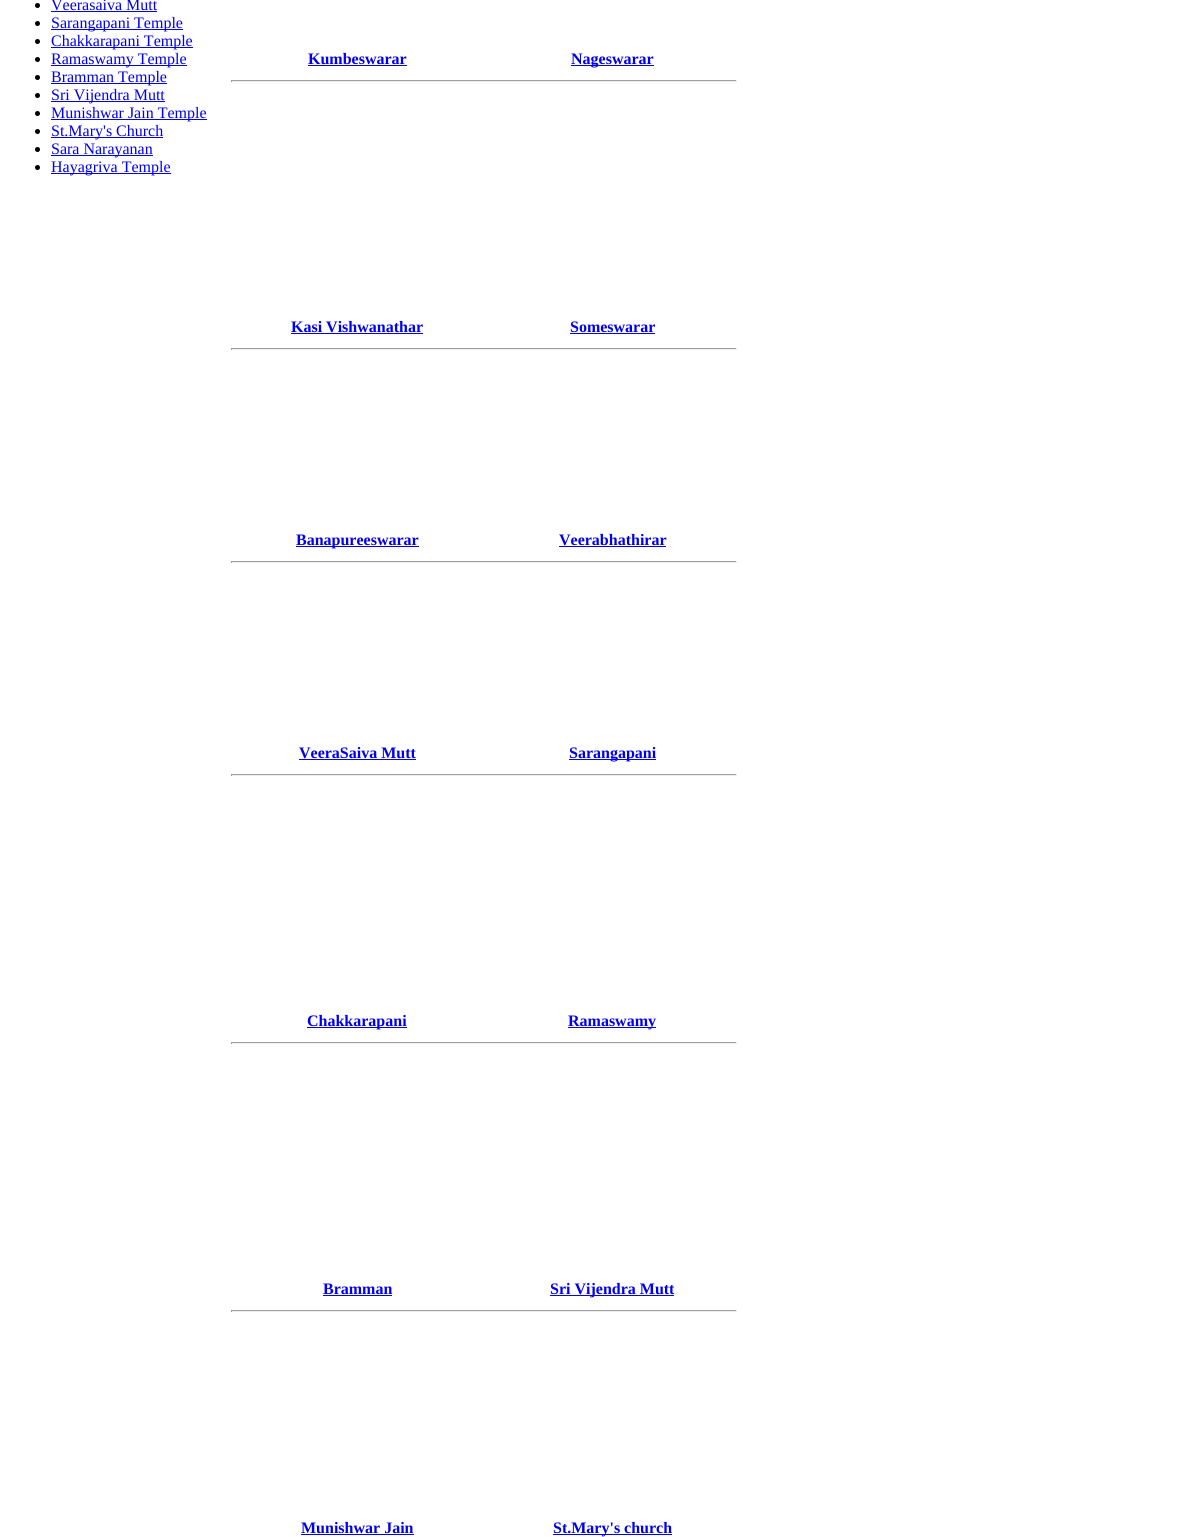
import math
import cairo



def draw(context):
    context.set_source_rgb(1, 1, 1)
    context.paint()
    context.set_source_rgb(0, 0, 0)
    context.arc(37.5, 5.5, 2.5, 0, 2 * math.pi)
    context.fill()
    context.set_source_rgb(0, 0, 238 / 255)
    context.rectangle(51, 11, 106, 1)
    context.fill()
    context.set_source_rgb(0, 0, 0)
    context.arc(37.5, 23.5, 2.5, 0, 2 * math.pi)
    context.fill()
    context.set_source_rgb(0, 0, 238 / 255)
    context.rectangle(51, 29, 132, 1)
    context.fill()
    context.set_source_rgb(0, 0, 0)
    context.arc(37.5, 41.5, 2.5, 0, 2 * math.pi)
    context.fill()
    context.set_source_rgb(0, 0, 238 / 255)
    context.rectangle(51, 47, 142, 1)
    context.fill()
    context.set_source_rgb(0, 0, 0)
    context.arc(37.5, 59.5, 2.5, 0, 2 * math.pi)
    context.fill()
    context.set_source_rgb(0, 0, 238 / 255)
    context.rectangle(51, 65, 136, 1)
    context.fill()
    context.set_source_rgb(0, 0, 0)
    context.arc(37.5, 77.5, 2.5, 0, 2 * math.pi)
    context.fill()
    context.set_source_rgb(0, 0, 238 / 255)
    context.rectangle(51, 83, 116, 1)
    context.fill()
    context.set_source_rgb(0, 0, 0)
    context.arc(37.5, 95.5, 2.5, 0, 2 * math.pi)
    context.fill()
    context.set_source_rgb(0, 0, 238 / 255)
    context.rectangle(51, 101, 114, 1)
    context.fill()
    context.set_source_rgb(0, 0, 0)
    context.arc(37.5, 113.5, 2.5, 0, 2 * math.pi)
    context.fill()
    context.set_source_rgb(0, 0, 238 / 255)
    context.rectangle(51, 119, 156, 1)
    context.fill()
    context.set_source_rgb(0, 0, 0)
    context.arc(37.5, 131.5, 2.5, 0, 2 * math.pi)
    context.fill()
    context.set_source_rgb(0, 0, 238 / 255)
    context.rectangle(51, 137, 112, 1)
    context.fill()
    context.set_source_rgb(0, 0, 0)
    context.arc(37.5, 149.5, 2.5, 0, 2 * math.pi)
    context.fill()
    context.set_source_rgb(0, 0, 238 / 255)
    context.rectangle(51, 155, 102, 1)
    context.fill()
    context.set_source_rgb(0, 0, 0)
    context.arc(37.5, 167.5, 2.5, 0, 2 * math.pi)
    context.fill()
    context.set_source_rgb(0, 0, 238 / 255)
    context.rectangle(51, 173, 120, 1)
    context.fill()
    context.rectangle(308, 65, 99, 1)
    context.fill()
    context.rectangle(571, 65, 83, 1)
    context.fill()
    context.set_source_rgb(159 / 255, 159 / 255, 159 / 255)
    context.rectangle(231, 80, 506, 1)
    context.fill()
    context.set_source_rgb(238 / 255, 238 / 255, 238 / 255)
    context.rectangle(736, 80, 1, 2)
    context.fill()
    context.rectangle(231, 81, 506, 1)
    context.fill()
    context.set_source_rgb(159 / 255, 159 / 255, 159 / 255)
    context.rectangle(231, 80, 1, 2)
    context.fill()
    context.set_source_rgb(0, 0, 238 / 255)
    context.rectangle(291, 333, 132, 1)
    context.fill()
    context.rectangle(570, 333, 85, 1)
    context.fill()
    context.set_source_rgb(159 / 255, 159 / 255, 159 / 255)
    context.rectangle(231, 348, 506, 1)
    context.fill()
    context.set_source_rgb(238 / 255, 238 / 255, 238 / 255)
    context.rectangle(736, 348, 1, 2)
    context.fill()
    context.rectangle(231, 349, 506, 1)
    context.fill()
    context.set_source_rgb(159 / 255, 159 / 255, 159 / 255)
    context.rectangle(231, 348, 1, 2)
    context.fill()
    context.set_source_rgb(0, 0, 238 / 255)
    context.rectangle(296, 546, 123, 1)
    context.fill()
    context.rectangle(559, 546, 107, 1)
    context.fill()
    context.set_source_rgb(159 / 255, 159 / 255, 159 / 255)
    context.rectangle(231, 561, 506, 1)
    context.fill()
    context.set_source_rgb(238 / 255, 238 / 255, 238 / 255)
    context.rectangle(736, 561, 1, 2)
    context.fill()
    context.rectangle(231, 562, 506, 1)
    context.fill()
    context.set_source_rgb(159 / 255, 159 / 255, 159 / 255)
    context.rectangle(231, 561, 1, 2)
    context.fill()
    context.set_source_rgb(0, 0, 238 / 255)
    context.rectangle(299, 759, 117, 1)
    context.fill()
    context.rectangle(569, 759, 87, 1)
    context.fill()
    context.set_source_rgb(159 / 255, 159 / 255, 159 / 255)
    context.rectangle(231, 774, 506, 1)
    context.fill()
    context.set_source_rgb(238 / 255, 238 / 255, 238 / 255)
    context.rectangle(736, 774, 1, 2)
    context.fill()
    context.rectangle(231, 775, 506, 1)
    context.fill()
    context.set_source_rgb(159 / 255, 159 / 255, 159 / 255)
    context.rectangle(231, 774, 1, 2)
    context.fill()
    context.set_source_rgb(0, 0, 238 / 255)
    context.rectangle(307, 1027, 100, 1)
    context.fill()
    context.rectangle(568, 1027, 88, 1)
    context.fill()
    context.set_source_rgb(159 / 255, 159 / 255, 159 / 255)
    context.rectangle(231, 1042, 506, 1)
    context.fill()
    context.set_source_rgb(238 / 255, 238 / 255, 238 / 255)
    context.rectangle(736, 1042, 1, 2)
    context.fill()
    context.rectangle(231, 1043, 506, 1)
    context.fill()
    context.set_source_rgb(159 / 255, 159 / 255, 159 / 255)
    context.rectangle(231, 1042, 1, 2)
    context.fill()
    context.set_source_rgb(0, 0, 238 / 255)
    context.rectangle(323, 1295, 69, 1)
    context.fill()
    context.rectangle(550, 1295, 124, 1)
    context.fill()
    context.set_source_rgb(159 / 255, 159 / 255, 159 / 255)
    context.rectangle(231, 1310, 506, 1)
    context.fill()
    context.set_source_rgb(238 / 255, 238 / 255, 238 / 255)
    context.rectangle(736, 1310, 1, 2)
    context.fill()
    context.rectangle(231, 1311, 506, 1)
    context.fill()
    context.set_source_rgb(159 / 255, 159 / 255, 159 / 255)
    context.rectangle(231, 1310, 1, 2)
    context.fill()
    context.set_source_rgb(0, 0, 238 / 255)
    context.rectangle(301, 1534, 113, 1)
    context.fill()
    context.rectangle(553, 1534, 119, 1)
    context.fill()
    context.select_font_face("Liberation Serif")
    context.set_font_size(16)
    context.move_to(51, 10)
    context.show_text("Veerasaiva Mutt")
    context.move_to(51, 28)
    context.show_text("Sarangapani Temple")
    context.move_to(51, 46)
    context.show_text("Chakkarapani Temple")
    context.move_to(51, 64)
    context.show_text("Ramaswamy Temple")
    context.move_to(51, 82)
    context.show_text("Bramman Temple")
    context.move_to(51, 100)
    context.show_text("Sri Vijendra Mutt")
    context.move_to(51, 118)
    context.show_text("Munishwar Jain Temple")
    context.move_to(51, 136)
    context.show_text("St.Mary's Church")
    context.move_to(51, 154)
    context.show_text("Sara Narayanan")
    context.move_to(51, 172)
    context.show_text("Hayagriva Temple")
    context.select_font_face("Liberation Serif", cairo.FontSlant.NORMAL, cairo.FontWeight.BOLD)
    context.move_to(308, 64)
    context.show_text("Kumbeswarar")
    context.move_to(571, 64)
    context.show_text("Nageswarar")
    context.move_to(291, 332)
    context.show_text("Kasi Vishwanathar")
    context.move_to(570, 332)
    context.show_text("Someswarar")
    context.move_to(296, 545)
    context.show_text("Banapureeswarar")
    context.move_to(559, 545)
    context.show_text("Veerabhathirar")
    context.move_to(299, 758)
    context.show_text("VeeraSaiva Mutt")
    context.move_to(569, 758)
    context.show_text("Sarangapani")
    context.move_to(307, 1026)
    context.show_text("Chakkarapani")
    context.move_to(568, 1026)
    context.show_text("Ramaswamy")
    context.move_to(323, 1294)
    context.show_text("Bramman")
    context.move_to(550, 1294)
    context.show_text("Sri Vijendra Mutt")
    context.move_to(301, 1533)
    context.show_text("Munishwar Jain")
    context.move_to(553, 1533)
    context.show_text("St.Mary's church")


surface = cairo.ImageSurface(cairo.Format.RGB24, 1185, 1537)
context = cairo.Context(surface)
options = cairo.FontOptions()
options.set_hint_metrics(cairo.HintMetrics.OFF)
options.set_hint_style(cairo.HintStyle.NONE)
context.set_font_options(options)
context.set_miter_limit(4)
draw(context)
surface.write_to_png("out.png")
